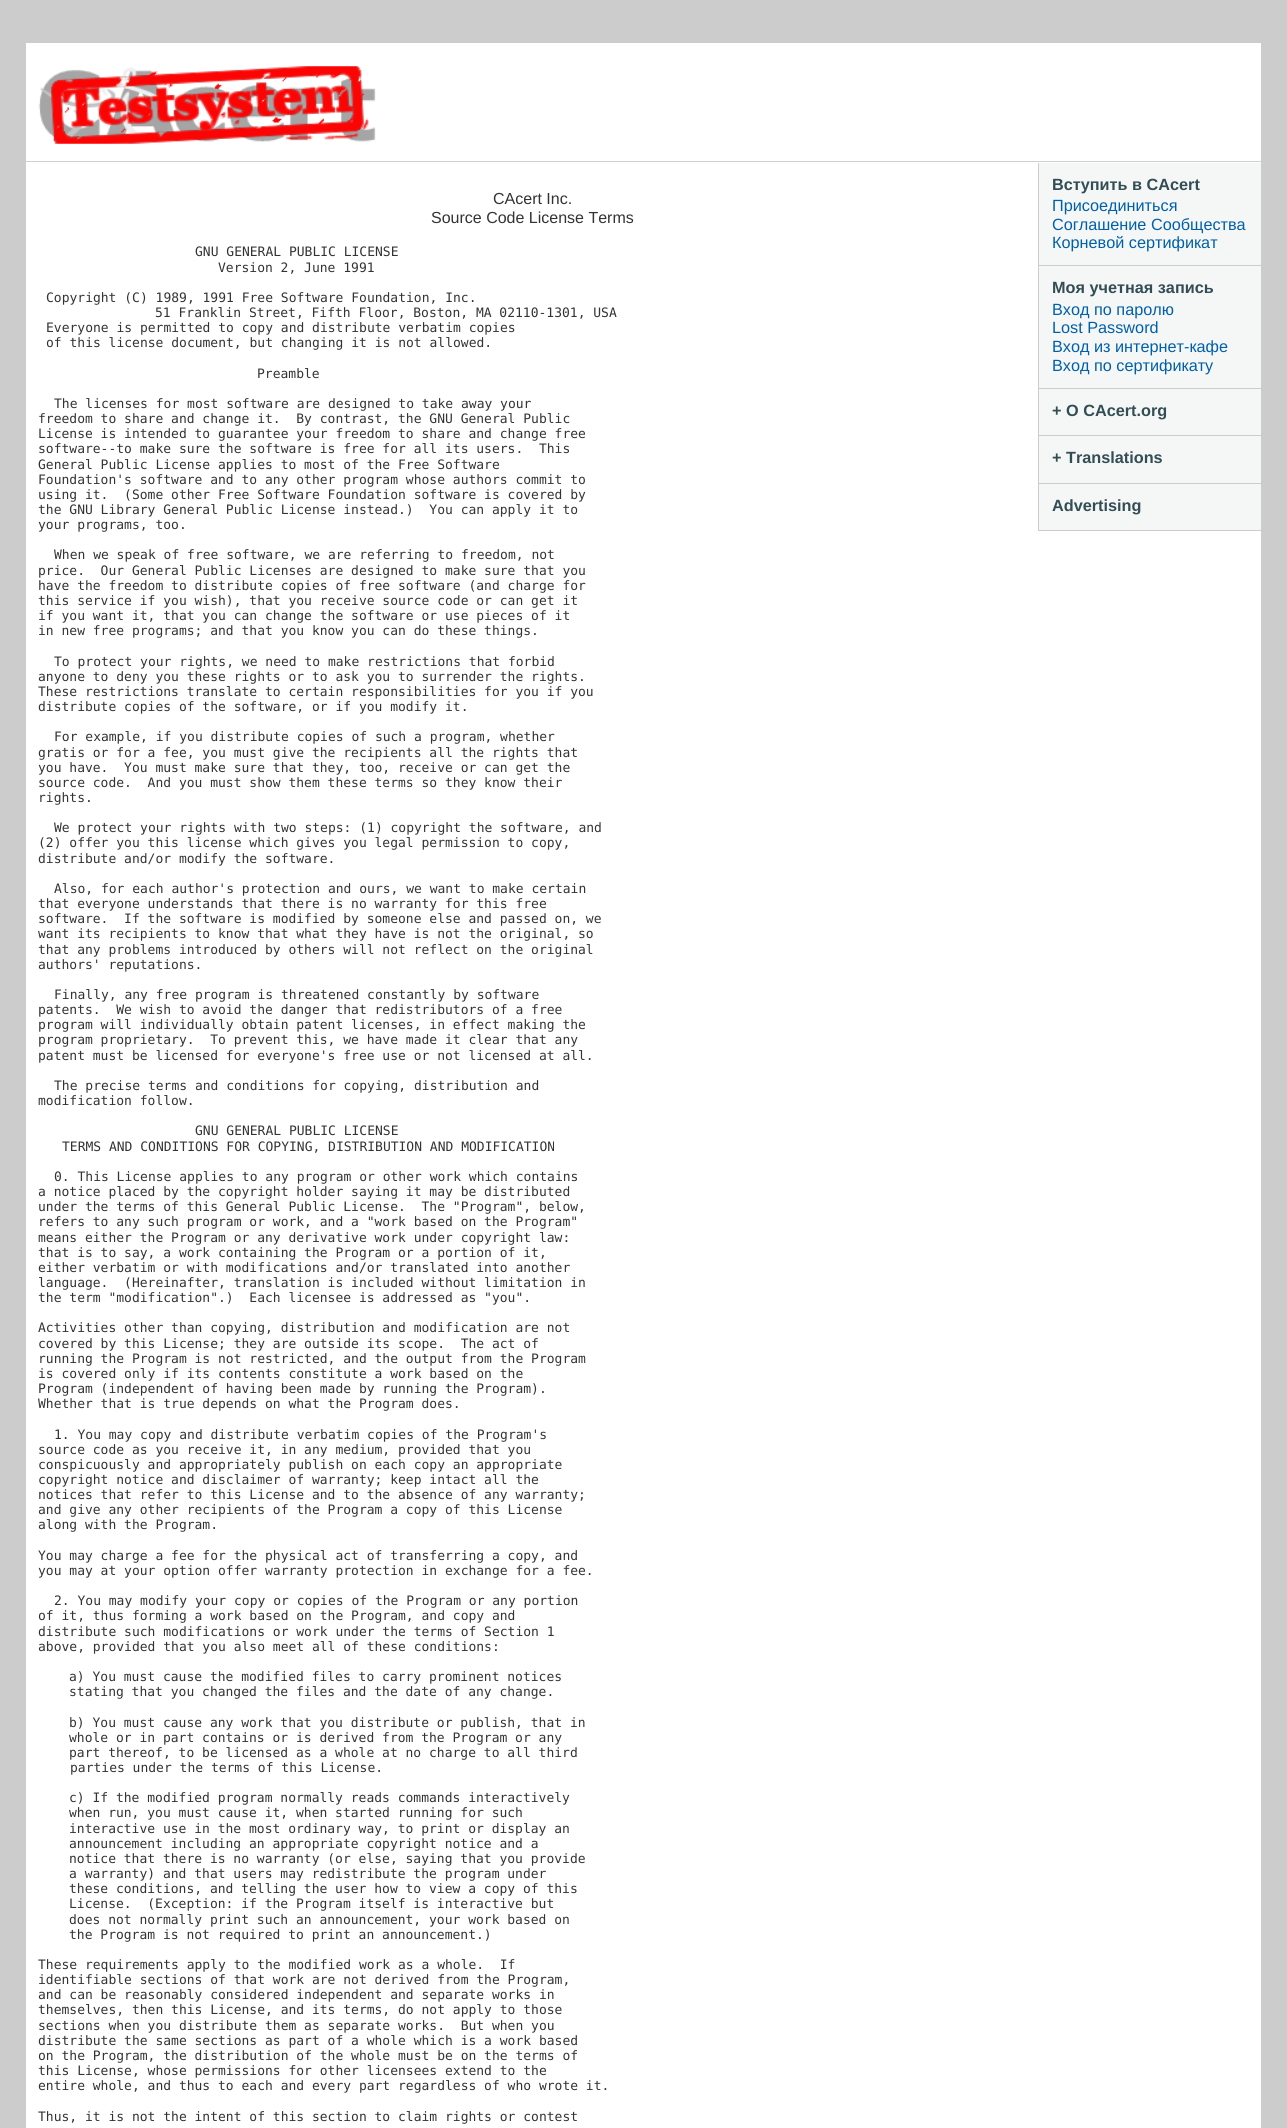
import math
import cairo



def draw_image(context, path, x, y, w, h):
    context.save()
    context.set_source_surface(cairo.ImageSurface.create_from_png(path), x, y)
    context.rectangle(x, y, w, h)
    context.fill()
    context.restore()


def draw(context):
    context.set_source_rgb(204 / 255, 204 / 255, 204 / 255)
    context.paint()
    context.set_source_rgb(1, 1, 1)
    context.rectangle(26, 43, 1235, 2085)
    context.fill()
    context.set_source_rgb(204 / 255, 210 / 255, 210 / 255)
    context.rectangle(26, 161, 1235, 1)
    context.fill()
    draw_image(context, "images/1.png", 38, 66, 338, 78)
    context.set_source_rgb(245 / 255, 247 / 255, 247 / 255)
    context.rectangle(1039, 163, 222, 367)
    context.fill()
    context.set_source_rgb(204 / 255, 204 / 255, 204 / 255)
    context.rectangle(1038, 163, 1, 368)
    context.fill()
    context.rectangle(1039, 265, 222, 1)
    context.fill()
    context.rectangle(1039, 388, 222, 1)
    context.fill()
    context.rectangle(1039, 435, 222, 1)
    context.fill()
    context.rectangle(1039, 483, 222, 1)
    context.fill()
    context.rectangle(1039, 530, 222, 1)
    context.fill()
    context.select_font_face("Liberation Sans")
    context.set_font_size(16)
    context.set_source_rgb(51 / 255, 51 / 255, 51 / 255)
    context.move_to(493, 204)
    context.show_text("CAcert Inc.")
    context.move_to(431, 223)
    context.show_text("Source Code License Terms")
    context.select_font_face("DejaVu Sans Mono")
    context.set_font_size(13)
    context.move_to(195, 256)
    context.show_text("GNU GENERAL PUBLIC LICENSE")
    context.move_to(218, 272)
    context.show_text("Version 2, June 1991")
    context.move_to(46, 302)
    context.show_text("Copyright (C) 1989, 1991 Free Software Foundation, Inc.")
    context.move_to(155, 317)
    context.show_text("51 Franklin Street, Fifth Floor, Boston, MA 02110-1301, USA")
    context.move_to(46, 332)
    context.show_text("Everyone is permitted to copy and distribute verbatim copies")
    context.move_to(46, 347)
    context.show_text("of this license document, but changing it is not allowed.")
    context.move_to(257, 378)
    context.show_text("Preamble")
    context.move_to(54, 408)
    context.show_text("The licenses for most software are designed to take away your")
    context.move_to(38, 423)
    context.show_text("freedom to share and change it.  By contrast, the GNU General Public")
    context.move_to(38, 438)
    context.show_text("License is intended to guarantee your freedom to share and change free")
    context.move_to(38, 453)
    context.show_text("software--to make sure the software is free for all its users.  This")
    context.move_to(38, 469)
    context.show_text("General Public License applies to most of the Free Software")
    context.move_to(38, 484)
    context.show_text("Foundation's software and to any other program whose authors commit to")
    context.move_to(38, 499)
    context.show_text("using it.  (Some other Free Software Foundation software is covered by")
    context.move_to(38, 514)
    context.show_text("the GNU Library General Public License instead.)  You can apply it to")
    context.move_to(38, 529)
    context.show_text("your programs, too.")
    context.move_to(54, 559)
    context.show_text("When we speak of free software, we are referring to freedom, not")
    context.move_to(38, 575)
    context.show_text("price.  Our General Public Licenses are designed to make sure that you")
    context.move_to(38, 590)
    context.show_text("have the freedom to distribute copies of free software (and charge for")
    context.move_to(38, 605)
    context.show_text("this service if you wish), that you receive source code or can get it")
    context.move_to(38, 620)
    context.show_text("if you want it, that you can change the software or use pieces of it")
    context.move_to(38, 635)
    context.show_text("in new free programs; and that you know you can do these things.")
    context.move_to(54, 666)
    context.show_text("To protect your rights, we need to make restrictions that forbid")
    context.move_to(38, 681)
    context.show_text("anyone to deny you these rights or to ask you to surrender the rights.")
    context.move_to(38, 696)
    context.show_text("These restrictions translate to certain responsibilities for you if you")
    context.move_to(38, 711)
    context.show_text("distribute copies of the software, or if you modify it.")
    context.move_to(54, 741)
    context.show_text("For example, if you distribute copies of such a program, whether")
    context.move_to(38, 757)
    context.show_text("gratis or for a fee, you must give the recipients all the rights that")
    context.move_to(38, 772)
    context.show_text("you have.  You must make sure that they, too, receive or can get the")
    context.move_to(38, 787)
    context.show_text("source code.  And you must show them these terms so they know their")
    context.move_to(38, 802)
    context.show_text("rights.")
    context.move_to(54, 832)
    context.show_text("We protect your rights with two steps: (1) copyright the software, and")
    context.move_to(38, 847)
    context.show_text("(2) offer you this license which gives you legal permission to copy,")
    context.move_to(38, 863)
    context.show_text("distribute and/or modify the software.")
    context.move_to(54, 893)
    context.show_text("Also, for each author's protection and ours, we want to make certain")
    context.move_to(38, 908)
    context.show_text("that everyone understands that there is no warranty for this free")
    context.move_to(38, 923)
    context.show_text("software.  If the software is modified by someone else and passed on, we")
    context.move_to(38, 938)
    context.show_text("want its recipients to know that what they have is not the original, so")
    context.move_to(38, 954)
    context.show_text("that any problems introduced by others will not reflect on the original")
    context.move_to(38, 969)
    context.show_text("authors' reputations.")
    context.move_to(54, 999)
    context.show_text("Finally, any free program is threatened constantly by software")
    context.move_to(38, 1014)
    context.show_text("patents.  We wish to avoid the danger that redistributors of a free")
    context.move_to(38, 1029)
    context.show_text("program will individually obtain patent licenses, in effect making the")
    context.move_to(38, 1044)
    context.show_text("program proprietary.  To prevent this, we have made it clear that any")
    context.move_to(38, 1060)
    context.show_text("patent must be licensed for everyone's free use or not licensed at all.")
    context.move_to(54, 1090)
    context.show_text("The precise terms and conditions for copying, distribution and")
    context.move_to(38, 1105)
    context.show_text("modification follow.")
    context.move_to(195, 1135)
    context.show_text("GNU GENERAL PUBLIC LICENSE")
    context.move_to(62, 1151)
    context.show_text("TERMS AND CONDITIONS FOR COPYING, DISTRIBUTION AND MODIFICATION")
    context.move_to(54, 1181)
    context.show_text("0. This License applies to any program or other work which contains")
    context.move_to(38, 1196)
    context.show_text("a notice placed by the copyright holder saying it may be distributed")
    context.move_to(38, 1211)
    context.show_text("under the terms of this General Public License.  The \"Program\", below,")
    context.move_to(38, 1226)
    context.show_text("refers to any such program or work, and a \"work based on the Program\"")
    context.move_to(38, 1242)
    context.show_text("means either the Program or any derivative work under copyright law:")
    context.move_to(38, 1257)
    context.show_text("that is to say, a work containing the Program or a portion of it,")
    context.move_to(38, 1272)
    context.show_text("either verbatim or with modifications and/or translated into another")
    context.move_to(38, 1287)
    context.show_text("language.  (Hereinafter, translation is included without limitation in")
    context.move_to(38, 1302)
    context.show_text("the term \"modification\".)  Each licensee is addressed as \"you\".")
    context.move_to(38, 1332)
    context.show_text("Activities other than copying, distribution and modification are not")
    context.move_to(38, 1348)
    context.show_text("covered by this License; they are outside its scope.  The act of")
    context.move_to(38, 1363)
    context.show_text("running the Program is not restricted, and the output from the Program")
    context.move_to(38, 1378)
    context.show_text("is covered only if its contents constitute a work based on the")
    context.move_to(38, 1393)
    context.show_text("Program (independent of having been made by running the Program).")
    context.move_to(38, 1408)
    context.show_text("Whether that is true depends on what the Program does.")
    context.move_to(54, 1439)
    context.show_text("1. You may copy and distribute verbatim copies of the Program's")
    context.move_to(38, 1454)
    context.show_text("source code as you receive it, in any medium, provided that you")
    context.move_to(38, 1469)
    context.show_text("conspicuously and appropriately publish on each copy an appropriate")
    context.move_to(38, 1484)
    context.show_text("copyright notice and disclaimer of warranty; keep intact all the")
    context.move_to(38, 1499)
    context.show_text("notices that refer to this License and to the absence of any warranty;")
    context.move_to(38, 1514)
    context.show_text("and give any other recipients of the Program a copy of this License")
    context.move_to(38, 1529)
    context.show_text("along with the Program.")
    context.move_to(38, 1560)
    context.show_text("You may charge a fee for the physical act of transferring a copy, and")
    context.move_to(38, 1575)
    context.show_text("you may at your option offer warranty protection in exchange for a fee.")
    context.move_to(54, 1605)
    context.show_text("2. You may modify your copy or copies of the Program or any portion")
    context.move_to(38, 1620)
    context.show_text("of it, thus forming a work based on the Program, and copy and")
    context.move_to(38, 1636)
    context.show_text("distribute such modifications or work under the terms of Section 1")
    context.move_to(38, 1651)
    context.show_text("above, provided that you also meet all of these conditions:")
    context.move_to(69, 1681)
    context.show_text("a) You must cause the modified files to carry prominent notices")
    context.move_to(69, 1696)
    context.show_text("stating that you changed the files and the date of any change.")
    context.move_to(69, 1727)
    context.show_text("b) You must cause any work that you distribute or publish, that in")
    context.move_to(69, 1742)
    context.show_text("whole or in part contains or is derived from the Program or any")
    context.move_to(69, 1757)
    context.show_text("part thereof, to be licensed as a whole at no charge to all third")
    context.move_to(70, 1772)
    context.show_text("parties under the terms of this License.")
    context.move_to(69, 1802)
    context.show_text("c) If the modified program normally reads commands interactively")
    context.move_to(69, 1817)
    context.show_text("when run, you must cause it, when started running for such")
    context.move_to(69, 1833)
    context.show_text("interactive use in the most ordinary way, to print or display an")
    context.move_to(69, 1848)
    context.show_text("announcement including an appropriate copyright notice and a")
    context.move_to(69, 1863)
    context.show_text("notice that there is no warranty (or else, saying that you provide")
    context.move_to(69, 1878)
    context.show_text("a warranty) and that users may redistribute the program under")
    context.move_to(69, 1893)
    context.show_text("these conditions, and telling the user how to view a copy of this")
    context.move_to(69, 1908)
    context.show_text("License.  (Exception: if the Program itself is interactive but")
    context.move_to(69, 1924)
    context.show_text("does not normally print such an announcement, your work based on")
    context.move_to(69, 1939)
    context.show_text("the Program is not required to print an announcement.)")
    context.move_to(38, 1969)
    context.show_text("These requirements apply to the modified work as a whole.  If")
    context.move_to(38, 1984)
    context.show_text("identifiable sections of that work are not derived from the Program,")
    context.move_to(38, 1999)
    context.show_text("and can be reasonably considered independent and separate works in")
    context.move_to(38, 2014)
    context.show_text("themselves, then this License, and its terms, do not apply to those")
    context.move_to(38, 2030)
    context.show_text("sections when you distribute them as separate works.  But when you")
    context.move_to(38, 2045)
    context.show_text("distribute the same sections as part of a whole which is a work based")
    context.move_to(38, 2060)
    context.show_text("on the Program, the distribution of the whole must be on the terms of")
    context.move_to(38, 2075)
    context.show_text("this License, whose permissions for other licensees extend to the")
    context.move_to(38, 2090)
    context.show_text("entire whole, and thus to each and every part regardless of who wrote it.")
    context.move_to(38, 2121)
    context.show_text("Thus, it is not the intent of this section to claim rights or contest")
    context.select_font_face("Liberation Sans", cairo.FontSlant.NORMAL, cairo.FontWeight.BOLD)
    context.set_font_size(16.25)
    context.set_source_rgb(51 / 255, 77 / 255, 85 / 255)
    context.move_to(1052, 190)
    context.show_text("Вступить в CAcert")
    context.select_font_face("Liberation Sans")
    context.set_source_rgb(0, 95 / 255, 169 / 255)
    context.move_to(1052, 211)
    context.show_text("Присоединиться")
    context.move_to(1052, 230)
    context.show_text("Соглашение Сообщества")
    context.move_to(1052, 248)
    context.show_text("Корневой сертификат")
    context.select_font_face("Liberation Sans", cairo.FontSlant.NORMAL, cairo.FontWeight.BOLD)
    context.set_source_rgb(51 / 255, 77 / 255, 85 / 255)
    context.move_to(1052, 293)
    context.show_text("Моя учетная запись")
    context.select_font_face("Liberation Sans")
    context.set_source_rgb(0, 95 / 255, 169 / 255)
    context.move_to(1052, 315)
    context.show_text("Вход по паролю")
    context.move_to(1052, 333)
    context.show_text("Lost Password")
    context.move_to(1052, 352)
    context.show_text("Вход из интернет-кафе")
    context.move_to(1052, 371)
    context.show_text("Вход по сертификату")
    context.select_font_face("Liberation Sans", cairo.FontSlant.NORMAL, cairo.FontWeight.BOLD)
    context.set_source_rgb(51 / 255, 77 / 255, 85 / 255)
    context.move_to(1052, 416)
    context.show_text("+ О CAcert.org")
    context.move_to(1052, 463)
    context.show_text("+ Translations")
    context.move_to(1052, 511)
    context.show_text("Advertising")


surface = cairo.ImageSurface(cairo.Format.RGB24, 1287, 2128)
context = cairo.Context(surface)
options = cairo.FontOptions()
options.set_hint_metrics(cairo.HintMetrics.OFF)
options.set_hint_style(cairo.HintStyle.NONE)
context.set_font_options(options)
context.set_miter_limit(4)
draw(context)
surface.write_to_png("out.png")
